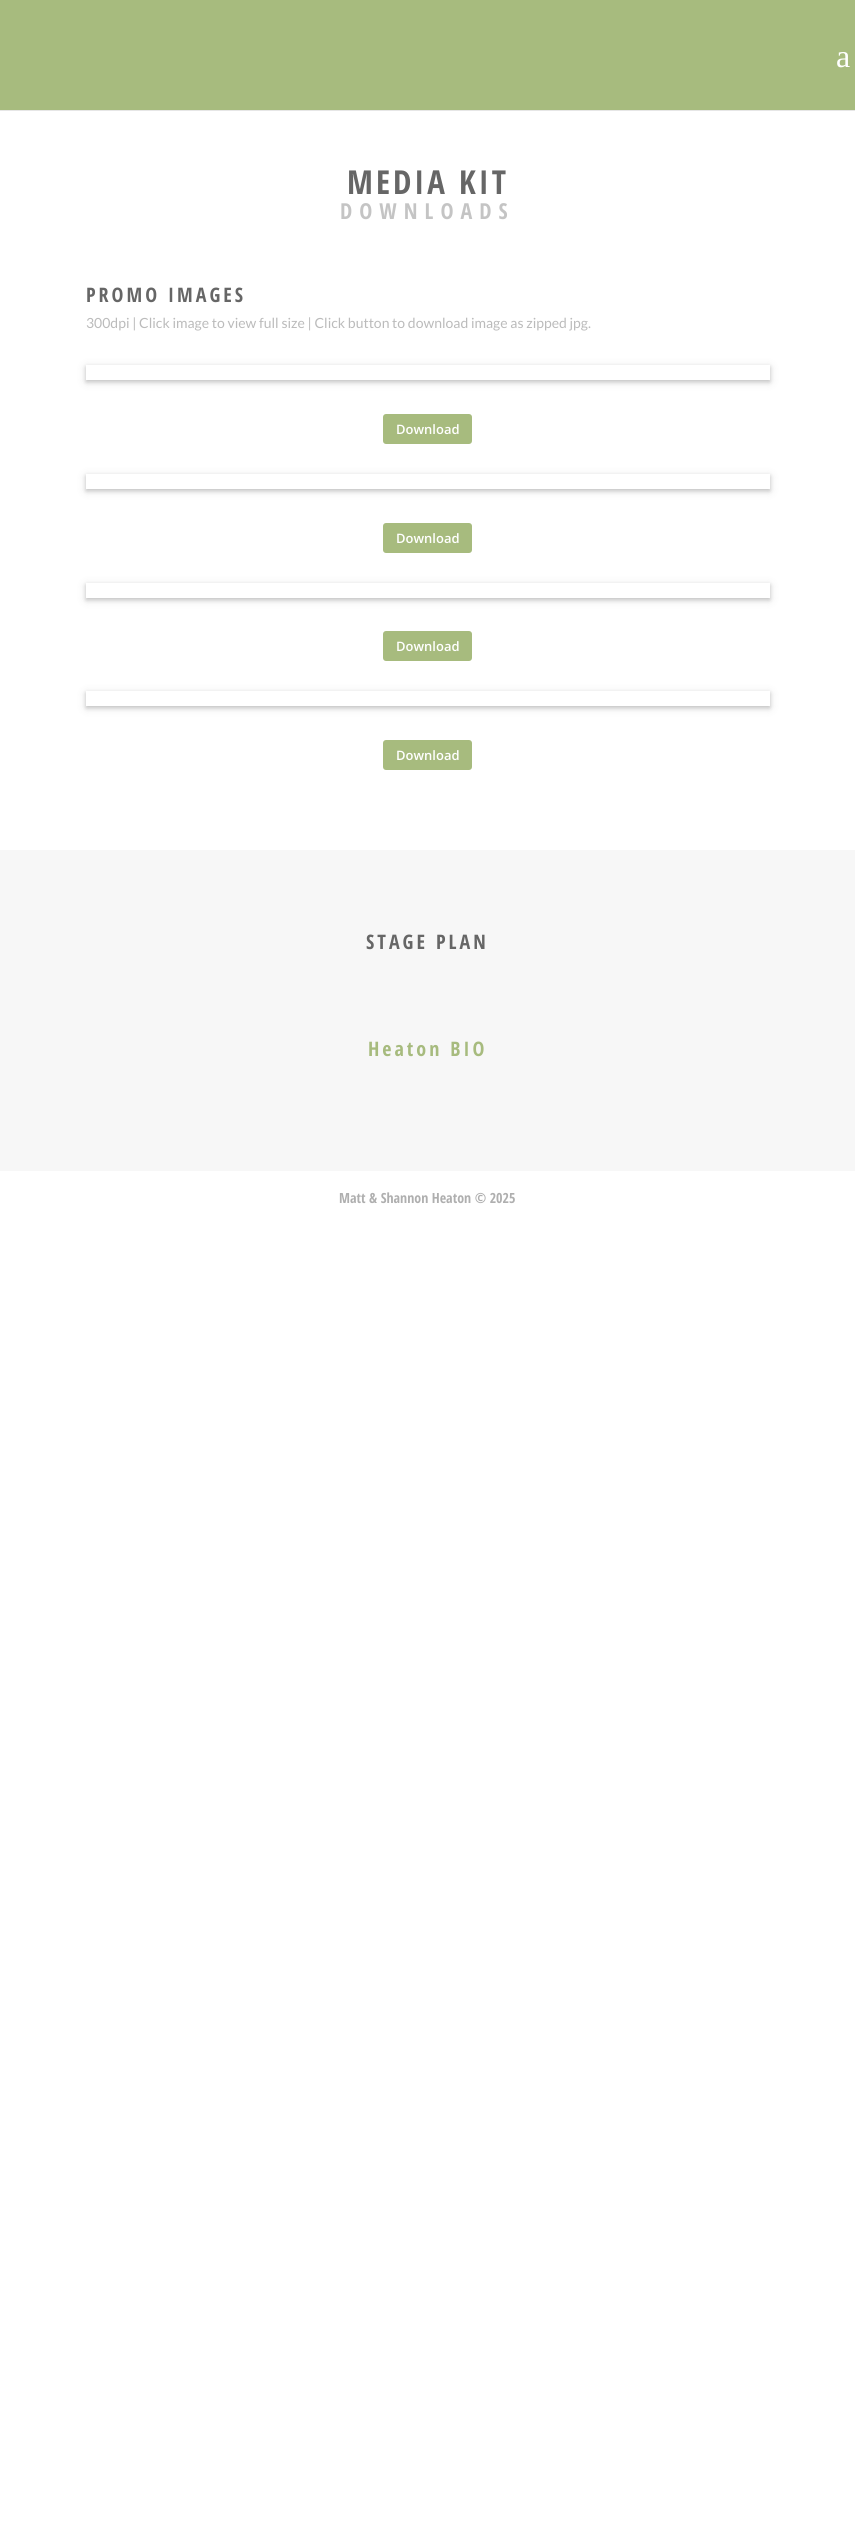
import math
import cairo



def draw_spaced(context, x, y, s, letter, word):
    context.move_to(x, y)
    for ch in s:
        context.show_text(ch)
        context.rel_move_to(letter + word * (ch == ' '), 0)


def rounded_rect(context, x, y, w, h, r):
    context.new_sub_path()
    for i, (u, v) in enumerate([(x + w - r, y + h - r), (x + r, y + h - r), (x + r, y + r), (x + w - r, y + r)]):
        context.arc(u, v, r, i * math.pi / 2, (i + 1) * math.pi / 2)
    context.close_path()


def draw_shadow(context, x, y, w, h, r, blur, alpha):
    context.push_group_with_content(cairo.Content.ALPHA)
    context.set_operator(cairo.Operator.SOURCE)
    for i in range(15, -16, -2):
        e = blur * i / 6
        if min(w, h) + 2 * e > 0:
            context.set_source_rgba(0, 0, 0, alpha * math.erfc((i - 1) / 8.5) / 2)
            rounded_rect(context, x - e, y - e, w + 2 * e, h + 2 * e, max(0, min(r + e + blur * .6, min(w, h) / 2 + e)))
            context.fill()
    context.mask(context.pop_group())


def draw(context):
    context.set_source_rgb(1, 1, 1)
    context.paint()
    context.set_source_rgb(230 / 255, 230 / 255, 230 / 255)
    context.rectangle(0, 110, 855, 1)
    context.fill()
    context.set_source_rgb(167 / 255, 187 / 255, 126 / 255)
    context.rectangle(0, 0, 855, 110)
    context.fill()
    context.save()
    context.set_fill_rule(cairo.FillRule.EVEN_ODD)
    context.new_path()
    context.move_to(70, 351)
    context.line_to(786, 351)
    context.line_to(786, 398)
    context.line_to(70, 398)
    context.close_path()
    context.move_to(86, 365)
    context.line_to(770, 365)
    context.line_to(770, 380)
    context.line_to(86, 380)
    context.close_path()
    context.clip()
    context.set_source_rgb(0, 0, 0)
    draw_shadow(context, 86, 367, 684, 15, 0, 5, 0.12)
    context.restore()
    context.save()
    context.set_fill_rule(cairo.FillRule.EVEN_ODD)
    context.new_path()
    context.move_to(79, 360)
    context.line_to(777, 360)
    context.line_to(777, 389)
    context.line_to(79, 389)
    context.close_path()
    context.move_to(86, 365)
    context.line_to(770, 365)
    context.line_to(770, 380)
    context.line_to(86, 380)
    context.close_path()
    context.clip()
    context.set_source_rgb(0, 0, 0)
    draw_shadow(context, 86, 367, 684, 15, 0, 2, 0.16)
    context.restore()
    rounded_rect(context, 383, 414, 89, 30, 3)
    context.fill()
    context.save()
    context.set_fill_rule(cairo.FillRule.EVEN_ODD)
    context.new_path()
    context.move_to(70, 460)
    context.line_to(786, 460)
    context.line_to(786, 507)
    context.line_to(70, 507)
    context.close_path()
    context.move_to(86, 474)
    context.line_to(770, 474)
    context.line_to(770, 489)
    context.line_to(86, 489)
    context.close_path()
    context.clip()
    context.set_source_rgb(0, 0, 0)
    draw_shadow(context, 86, 476, 684, 15, 0, 5, 0.12)
    context.restore()
    context.save()
    context.set_fill_rule(cairo.FillRule.EVEN_ODD)
    context.new_path()
    context.move_to(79, 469)
    context.line_to(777, 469)
    context.line_to(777, 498)
    context.line_to(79, 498)
    context.close_path()
    context.move_to(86, 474)
    context.line_to(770, 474)
    context.line_to(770, 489)
    context.line_to(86, 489)
    context.close_path()
    context.clip()
    context.set_source_rgb(0, 0, 0)
    draw_shadow(context, 86, 476, 684, 15, 0, 2, 0.16)
    context.restore()
    rounded_rect(context, 383, 523, 89, 30, 3)
    context.fill()
    context.save()
    context.set_fill_rule(cairo.FillRule.EVEN_ODD)
    context.new_path()
    context.move_to(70, 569)
    context.line_to(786, 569)
    context.line_to(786, 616)
    context.line_to(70, 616)
    context.close_path()
    context.move_to(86, 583)
    context.line_to(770, 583)
    context.line_to(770, 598)
    context.line_to(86, 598)
    context.close_path()
    context.clip()
    context.set_source_rgb(0, 0, 0)
    draw_shadow(context, 86, 585, 684, 15, 0, 5, 0.12)
    context.restore()
    context.save()
    context.set_fill_rule(cairo.FillRule.EVEN_ODD)
    context.new_path()
    context.move_to(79, 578)
    context.line_to(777, 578)
    context.line_to(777, 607)
    context.line_to(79, 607)
    context.close_path()
    context.move_to(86, 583)
    context.line_to(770, 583)
    context.line_to(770, 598)
    context.line_to(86, 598)
    context.close_path()
    context.clip()
    context.set_source_rgb(0, 0, 0)
    draw_shadow(context, 86, 585, 684, 15, 0, 2, 0.16)
    context.restore()
    rounded_rect(context, 383, 631, 89, 30, 3)
    context.fill()
    context.save()
    context.set_fill_rule(cairo.FillRule.EVEN_ODD)
    context.new_path()
    context.move_to(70, 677)
    context.line_to(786, 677)
    context.line_to(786, 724)
    context.line_to(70, 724)
    context.close_path()
    context.move_to(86, 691)
    context.line_to(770, 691)
    context.line_to(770, 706)
    context.line_to(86, 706)
    context.close_path()
    context.clip()
    context.set_source_rgb(0, 0, 0)
    draw_shadow(context, 86, 693, 684, 15, 0, 5, 0.12)
    context.restore()
    context.save()
    context.set_fill_rule(cairo.FillRule.EVEN_ODD)
    context.new_path()
    context.move_to(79, 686)
    context.line_to(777, 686)
    context.line_to(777, 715)
    context.line_to(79, 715)
    context.close_path()
    context.move_to(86, 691)
    context.line_to(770, 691)
    context.line_to(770, 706)
    context.line_to(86, 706)
    context.close_path()
    context.clip()
    context.set_source_rgb(0, 0, 0)
    draw_shadow(context, 86, 693, 684, 15, 0, 2, 0.16)
    context.restore()
    rounded_rect(context, 383, 740, 89, 30, 3)
    context.fill()
    context.set_source_rgb(247 / 255, 247 / 255, 247 / 255)
    context.rectangle(0, 850, 855, 321)
    context.fill()
    context.select_font_face("Liberation Serif")
    context.set_font_size(32)
    context.set_source_rgb(1, 1, 1)
    context.move_to(836, 67)
    context.show_text("a")
    context.select_font_face("Open Sans Condensed", cairo.FontSlant.NORMAL, cairo.FontWeight.BOLD)
    context.set_font_size(33)
    context.set_source_rgb(102 / 255, 102 / 255, 102 / 255)
    draw_spaced(context, 347, 194, "MEDIA KIT", 3, 0)
    context.set_font_size(22)
    context.set_source_rgb(196 / 255, 196 / 255, 196 / 255)
    draw_spaced(context, 340, 219, "DOWNLOADS", 7, 0)
    context.set_font_size(20)
    context.set_source_rgb(102 / 255, 102 / 255, 102 / 255)
    draw_spaced(context, 86, 302, "PROMO IMAGES", 3, 0)
    context.select_font_face("Lato")
    context.set_font_size(14)
    context.set_source_rgb(187 / 255, 187 / 255, 187 / 255)
    context.move_to(86, 328)
    context.show_text("300dpi | Click image to view full size | Click button to download image as zipped jpg.")
    context.select_font_face("Open Sans SemiBold")
    context.set_font_size(13)
    context.set_source_rgb(1, 1, 1)
    context.move_to(396, 434)
    context.show_text("Download")
    context.move_to(396, 543)
    context.show_text("Download")
    context.move_to(396, 651)
    context.show_text("Download")
    context.move_to(396, 760)
    context.show_text("Download")
    context.select_font_face("Open Sans Condensed", cairo.FontSlant.NORMAL, cairo.FontWeight.BOLD)
    context.set_font_size(20)
    context.set_source_rgb(102 / 255, 102 / 255, 102 / 255)
    draw_spaced(context, 366, 949, "STAGE PLAN", 3, 0)
    context.set_source_rgb(167 / 255, 187 / 255, 126 / 255)
    draw_spaced(context, 368, 1056, "Heaton BIO", 3, 0)
    context.set_font_size(14)
    context.set_source_rgb(175 / 255, 175 / 255, 175 / 255)
    context.move_to(339, 1203)
    context.show_text("Matt & Shannon Heaton © 2025")


surface = cairo.ImageSurface(cairo.Format.RGB24, 855, 2547)
context = cairo.Context(surface)
options = cairo.FontOptions()
options.set_hint_metrics(cairo.HintMetrics.OFF)
options.set_hint_style(cairo.HintStyle.NONE)
context.set_font_options(options)
context.set_miter_limit(4)
draw(context)
surface.write_to_png("out.png")
